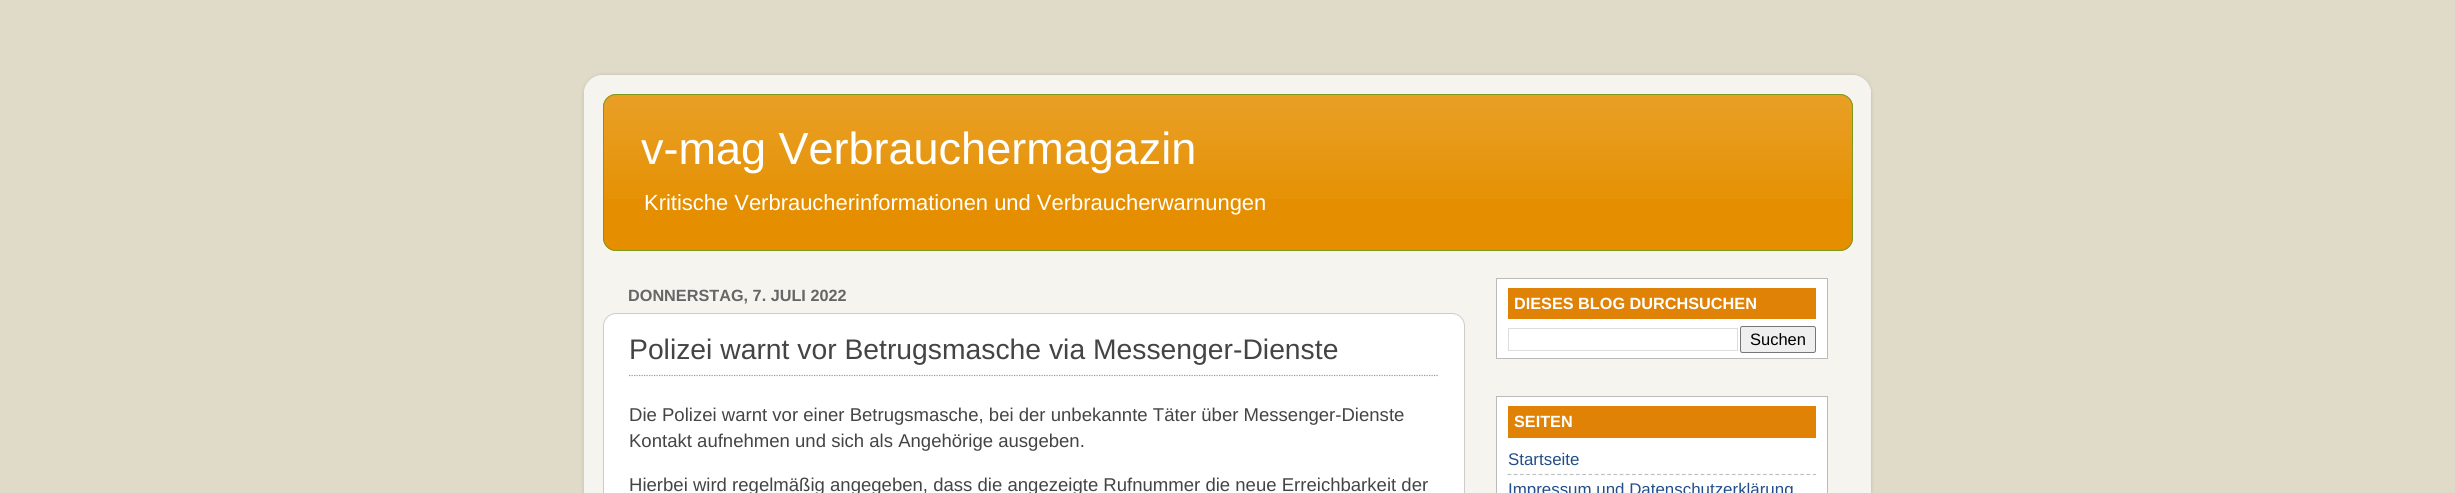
import math
import cairo



def rounded_rect(context, x, y, w, h, r):
    context.new_sub_path()
    for i, (u, v) in enumerate([(x + w - r, y + h - r), (x + r, y + h - r), (x + r, y + r), (x + w - r, y + r)]):
        context.arc(u, v, r, i * math.pi / 2, (i + 1) * math.pi / 2)
    context.close_path()


def draw_shadow(context, x, y, w, h, r, blur, alpha):
    context.push_group_with_content(cairo.Content.ALPHA)
    context.set_operator(cairo.Operator.SOURCE)
    for i in range(15, -16, -2):
        e = blur * i / 6
        if min(w, h) + 2 * e > 0:
            context.set_source_rgba(0, 0, 0, alpha * math.erfc((i - 1) / 8.5) / 2)
            rounded_rect(context, x - e, y - e, w + 2 * e, h + 2 * e, max(0, min(r + e + blur * .6, min(w, h) / 2 + e)))
            context.fill()
    context.mask(context.pop_group())


def draw_image(context, path, x, y, w, h):
    context.save()
    context.set_source_surface(cairo.ImageSurface.create_from_png(path), x, y)
    context.rectangle(x, y, w, h)
    context.fill()
    context.restore()


def draw(context):
    context.set_source_rgb(223 / 255, 219 / 255, 200 / 255)
    context.paint()
    context.save()
    context.set_fill_rule(cairo.FillRule.EVEN_ODD)
    context.new_path()
    context.move_to(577, 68)
    context.line_to(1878, 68)
    context.line_to(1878, 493)
    context.line_to(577, 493)
    context.close_path()
    context.move_to(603, 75)
    context.line_to(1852, 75)
    context.curve_to(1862.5, 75, 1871, 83.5, 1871, 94)
    context.line_to(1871, 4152)
    context.curve_to(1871, 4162.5, 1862.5, 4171, 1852, 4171)
    context.line_to(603, 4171)
    context.curve_to(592.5, 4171, 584, 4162.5, 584, 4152)
    context.line_to(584, 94)
    context.curve_to(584, 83.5, 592.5, 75, 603, 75)
    context.close_path()
    context.clip()
    context.set_source_rgb(0, 0, 0)
    draw_shadow(context, 584, 75, 1287, 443, 19, 2, 0.15)
    context.restore()
    draw_image(context, "images/1.png", 584, 75, 1287, 418)
    context.set_source_rgb(229 / 255, 143 / 255, 0)
    rounded_rect(context, 603, 94, 1250, 157, 13)
    context.fill()
    draw_image(context, "images/2.png", 603, 94, 1250, 105)
    rounded_rect(context, 603.5, 94.5, 1249, 156, 12.5)
    context.set_source_rgb(124 / 255, 153 / 255, 30 / 255)
    context.set_line_width(1)
    context.stroke()
    context.set_source_rgb(1, 1, 1)
    rounded_rect(context, 603.5, 313.5, 861, 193, 12.5)
    context.fill_preserve()
    context.set_source_rgb(204 / 255, 204 / 255, 204 / 255)
    context.stroke()
    context.new_path()
    context.move_to(629, 375.5)
    context.line_to(1439, 375.5)
    context.set_source_rgb(153 / 255, 153 / 255, 153 / 255)
    context.set_line_width(1.2)
    context.set_dash([1.25, 1.25])
    context.stroke()
    context.set_source_rgb(1, 1, 1)
    context.rectangle(1496.5, 278.5, 331, 80)
    context.fill_preserve()
    context.set_source_rgb(187 / 255, 187 / 255, 187 / 255)
    context.set_line_width(1)
    context.set_dash([])
    context.stroke()
    context.set_source_rgb(224 / 255, 130 / 255, 6 / 255)
    context.rectangle(1508, 288, 308, 31)
    context.fill()
    context.rectangle(1508.5, 328.5, 229, 22)
    context.set_source_rgb(221 / 255, 221 / 255, 221 / 255)
    context.stroke()
    context.set_source_rgb(239 / 255, 239 / 255, 239 / 255)
    rounded_rect(context, 1740.5, 326.5, 75, 26, 2)
    context.fill_preserve()
    context.set_source_rgb(118 / 255, 118 / 255, 118 / 255)
    context.stroke()
    context.set_source_rgb(1, 1, 1)
    context.rectangle(1496.5, 396.5, 331, 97)
    context.fill_preserve()
    context.set_source_rgb(187 / 255, 187 / 255, 187 / 255)
    context.stroke()
    context.set_source_rgb(224 / 255, 130 / 255, 6 / 255)
    context.rectangle(1508, 406, 308, 32)
    context.fill()
    context.new_path()
    context.move_to(1507.5, 474.5)
    context.line_to(1816, 474.5)
    context.set_source_rgb(192 / 255, 192 / 255, 192 / 255)
    context.set_line_width(1.2)
    context.set_dash([3.75, 2.48])
    context.stroke()
    context.select_font_face("Liberation Sans")
    context.set_font_size(45)
    context.set_source_rgb(1, 1, 1)
    context.move_to(641, 164)
    context.show_text("v-mag Verbrauchermagazin")
    context.set_font_size(21.95)
    context.move_to(644, 210)
    context.show_text("Kritische Verbraucherinformationen und Verbraucherwarnungen")
    context.select_font_face("Liberation Sans", cairo.FontSlant.NORMAL, cairo.FontWeight.BOLD)
    context.set_font_size(16.25)
    context.set_source_rgb(102 / 255, 102 / 255, 102 / 255)
    context.move_to(628, 301)
    context.show_text("DONNERSTAG, 7. JULI 2022")
    context.select_font_face("Liberation Sans")
    context.set_font_size(28.3)
    context.set_source_rgb(68 / 255, 68 / 255, 68 / 255)
    context.move_to(629, 359)
    context.show_text("Polizei warnt vor Betrugsmasche via Messenger-Dienste")
    context.set_font_size(18.55)
    context.move_to(629, 421)
    context.show_text("Die Polizei warnt vor einer Betrugsmasche, bei der unbekannte Täter über Messenger-Dienste")
    context.move_to(629, 447)
    context.show_text("Kontakt aufnehmen und sich als Angehörige ausgeben.")
    context.move_to(629, 491)
    context.show_text("Hierbei wird regelmäßig angegeben, dass die angezeigte Rufnummer die neue Erreichbarkeit der")
    context.select_font_face("Liberation Sans", cairo.FontSlant.NORMAL, cairo.FontWeight.BOLD)
    context.set_font_size(16.25)
    context.set_source_rgb(1, 1, 1)
    context.move_to(1514, 309)
    context.show_text("DIESES BLOG DURCHSUCHEN")
    context.select_font_face("Liberation Sans")
    context.set_font_size(16.5)
    context.set_source_rgb(0, 0, 0)
    context.move_to(1750, 345)
    context.show_text("Suchen")
    context.select_font_face("Liberation Sans", cairo.FontSlant.NORMAL, cairo.FontWeight.BOLD)
    context.set_font_size(16.25)
    context.set_source_rgb(1, 1, 1)
    context.move_to(1514, 427)
    context.show_text("SEITEN")
    context.select_font_face("Liberation Sans")
    context.set_font_size(16.9)
    context.set_source_rgb(35 / 255, 77 / 255, 138 / 255)
    context.move_to(1508, 465)
    context.show_text("Startseite")
    context.move_to(1508, 495)
    context.show_text("Impressum und Datenschutzerklärung")


surface = cairo.ImageSurface(cairo.Format.RGB24, 2455, 493)
context = cairo.Context(surface)
options = cairo.FontOptions()
options.set_hint_metrics(cairo.HintMetrics.OFF)
options.set_hint_style(cairo.HintStyle.NONE)
context.set_font_options(options)
context.set_miter_limit(4)
draw(context)
surface.write_to_png("out.png")
